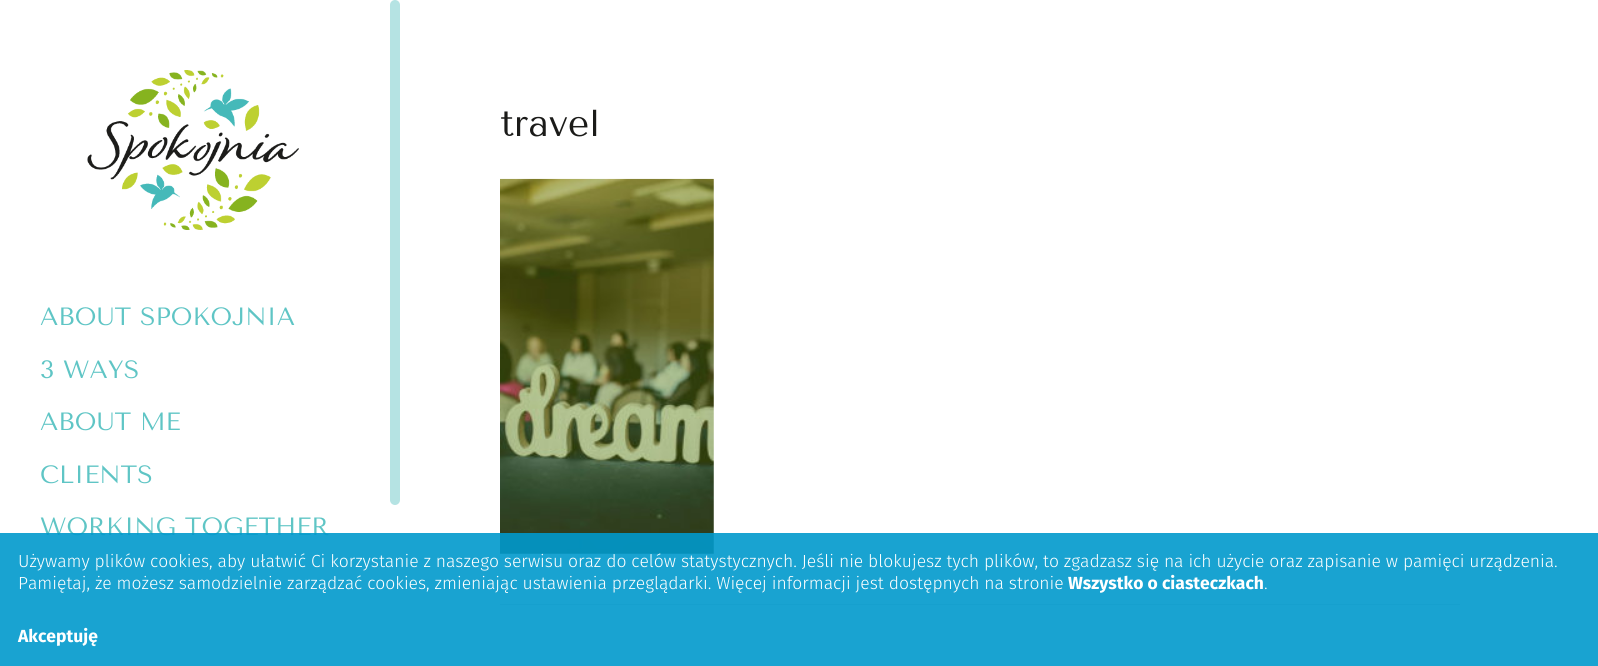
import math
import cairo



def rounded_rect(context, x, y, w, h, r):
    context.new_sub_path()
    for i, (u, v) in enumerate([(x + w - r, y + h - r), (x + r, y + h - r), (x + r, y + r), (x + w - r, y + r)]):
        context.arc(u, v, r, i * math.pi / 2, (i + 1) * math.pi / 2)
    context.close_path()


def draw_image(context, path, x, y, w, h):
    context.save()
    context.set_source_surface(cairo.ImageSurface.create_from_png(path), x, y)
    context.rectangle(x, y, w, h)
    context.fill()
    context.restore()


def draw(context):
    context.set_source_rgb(1, 1, 1)
    context.paint()
    draw_image(context, "images/1.png", 500, 178, 214, 376)
    context.set_source_rgb(221 / 255, 221 / 255, 221 / 255)
    context.rectangle(500, 604, 960, 1)
    context.fill()
    draw_image(context, "images/2.png", 87, 70, 212, 160)
    context.set_source_rgb(181 / 255, 227 / 255, 227 / 255)
    rounded_rect(context, 390, 0, 10, 505, 5)
    context.fill()
    context.select_font_face("Tenor Sans")
    context.set_font_size(37.5)
    context.set_source_rgb(27 / 255, 27 / 255, 25 / 255)
    context.move_to(500, 136)
    context.show_text("travel")
    context.set_font_size(25)
    context.set_source_rgb(95 / 255, 197 / 255, 197 / 255)
    context.move_to(40, 325)
    context.show_text("ABOUT SPOKOJNIA")
    context.move_to(40, 378)
    context.show_text("3 WAYS")
    context.move_to(40, 430)
    context.show_text("ABOUT ME")
    context.move_to(40, 483)
    context.show_text("CLIENTS")
    context.move_to(40, 535)
    context.show_text("WORKING TOGETHER")
    context.set_source_rgba(0, 153 / 255, 204 / 255, 0.9)
    context.rectangle(0, 533, 1598, 133)
    context.fill()
    context.select_font_face("Fira Sans Light")
    context.set_font_size(17.5)
    context.set_source_rgb(1, 1, 1)
    context.move_to(18, 567)
    context.show_text("Używamy plików cookies, aby ułatwić Ci korzystanie z naszego serwisu oraz do celów statystycznych. Jeśli nie blokujesz tych plików, to zgadzasz się na ich użycie oraz zapisanie w pamięci urządzenia.")
    context.move_to(18, 589)
    context.show_text("Pamiętaj, że możesz samodzielnie zarządzać cookies, zmieniając ustawienia przeglądarki. Więcej informacji jest dostępnych na stronie")
    context.select_font_face("Fira Sans", cairo.FontSlant.NORMAL, cairo.FontWeight.BOLD)
    context.move_to(1068, 589)
    context.show_text("Wszystko o ciasteczkach")
    context.select_font_face("Fira Sans Light")
    context.move_to(1264, 589)
    context.show_text(".")
    context.select_font_face("Fira Sans", cairo.FontSlant.NORMAL, cairo.FontWeight.BOLD)
    context.move_to(18, 642)
    context.show_text("Akceptuję")


surface = cairo.ImageSurface(cairo.Format.RGB24, 1598, 666)
context = cairo.Context(surface)
options = cairo.FontOptions()
options.set_hint_metrics(cairo.HintMetrics.OFF)
options.set_hint_style(cairo.HintStyle.NONE)
context.set_font_options(options)
context.set_miter_limit(4)
draw(context)
surface.write_to_png("out.png")
